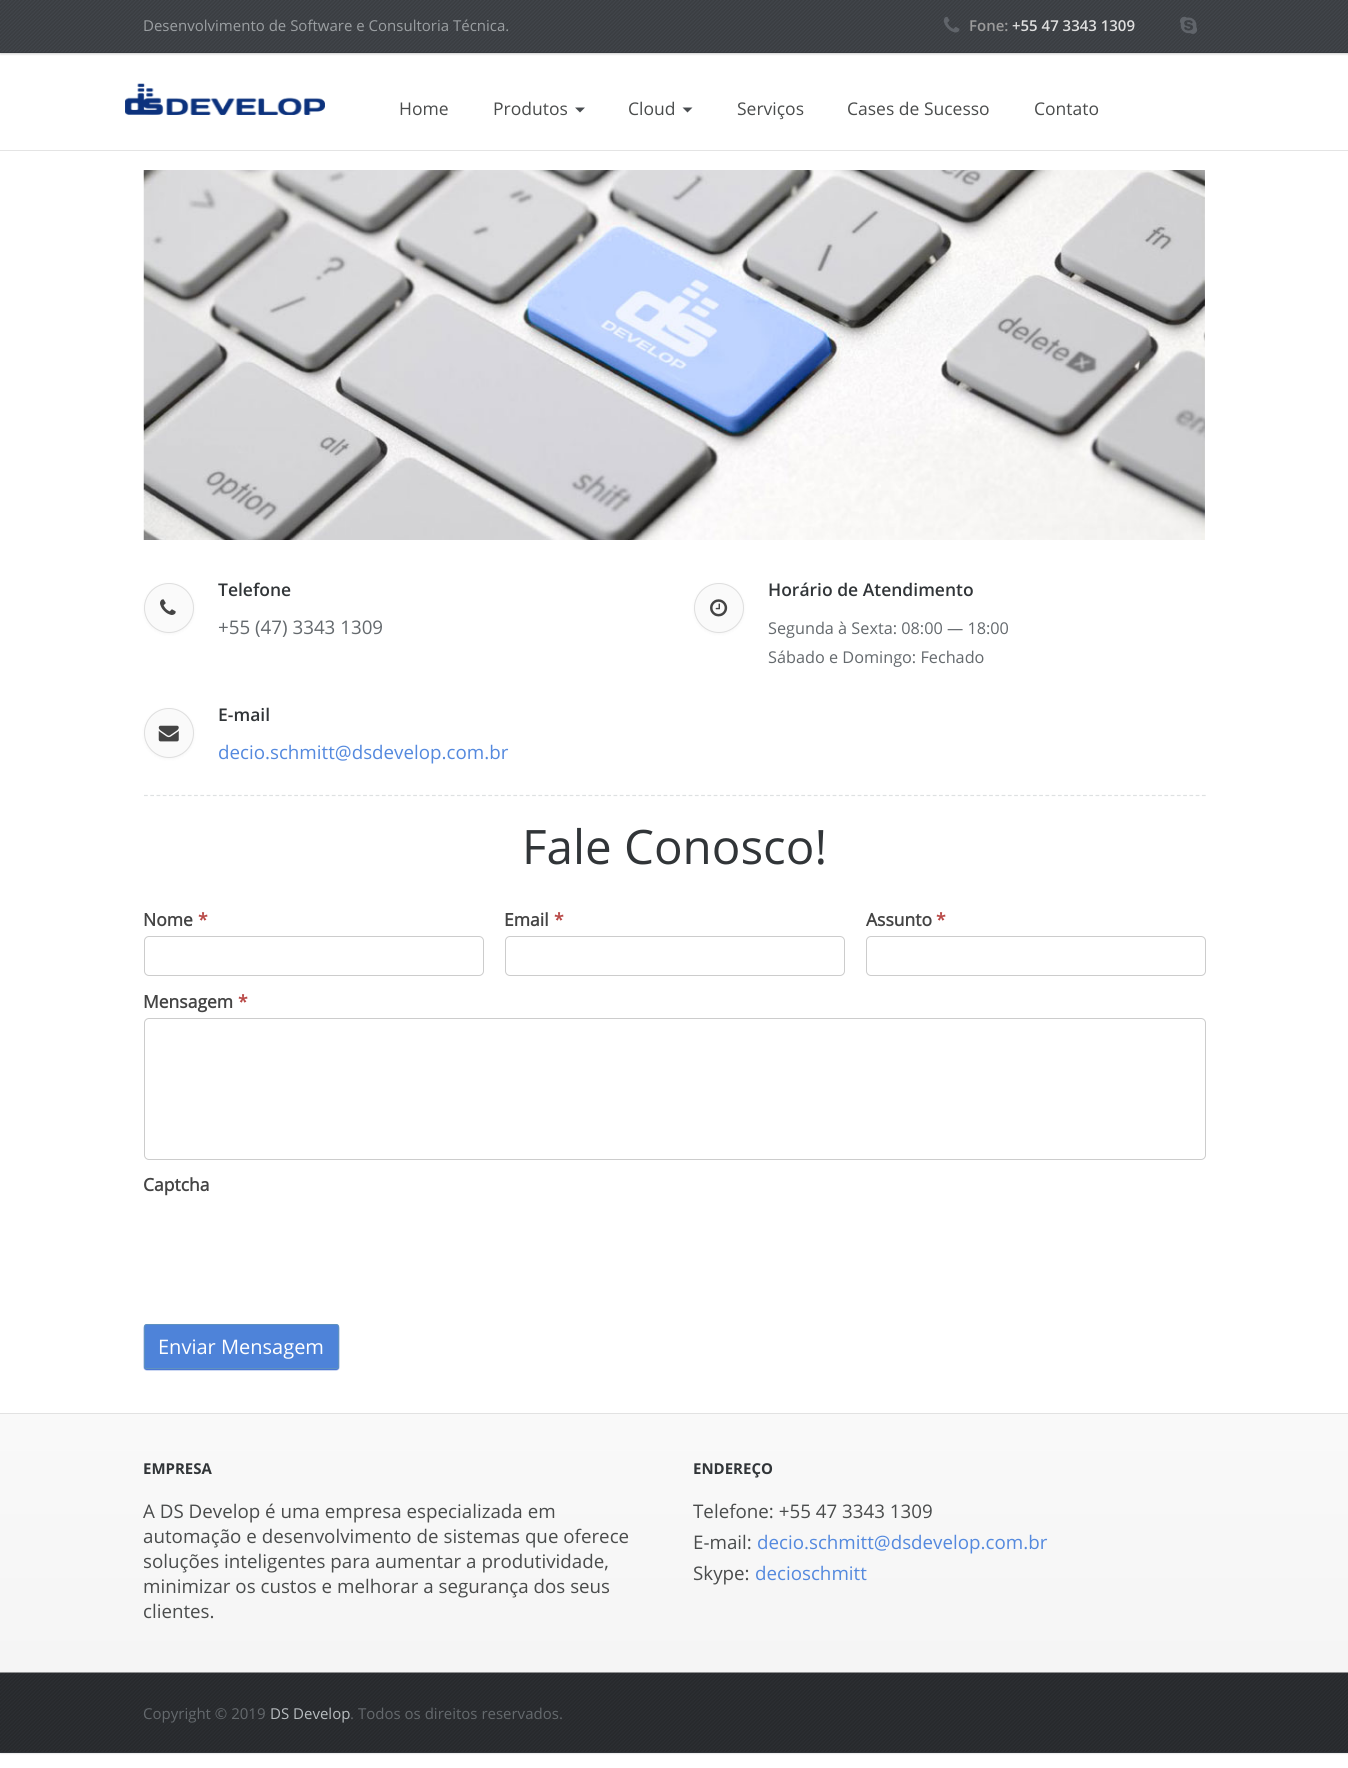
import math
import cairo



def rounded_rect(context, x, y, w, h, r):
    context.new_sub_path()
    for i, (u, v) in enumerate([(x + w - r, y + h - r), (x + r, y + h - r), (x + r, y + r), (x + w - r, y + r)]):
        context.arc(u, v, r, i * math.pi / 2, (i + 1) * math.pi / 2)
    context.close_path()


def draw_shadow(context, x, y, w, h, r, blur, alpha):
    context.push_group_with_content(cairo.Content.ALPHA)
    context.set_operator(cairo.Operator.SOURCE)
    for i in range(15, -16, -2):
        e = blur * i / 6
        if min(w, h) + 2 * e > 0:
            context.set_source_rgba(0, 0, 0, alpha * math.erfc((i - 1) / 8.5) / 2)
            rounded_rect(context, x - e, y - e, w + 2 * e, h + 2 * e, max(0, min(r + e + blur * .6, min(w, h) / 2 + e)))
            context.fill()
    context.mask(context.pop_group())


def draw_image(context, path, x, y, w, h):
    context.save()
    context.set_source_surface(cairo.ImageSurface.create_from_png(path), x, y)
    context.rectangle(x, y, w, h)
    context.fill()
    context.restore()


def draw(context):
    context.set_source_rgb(1, 1, 1)
    context.paint()
    context.set_source_rgb(0, 0, 0)
    draw_shadow(context, 0, 0, 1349, 1753, 0, 1, 0.2)
    context.set_source_rgb(1, 1, 1)
    context.rectangle(0, 53, 1348, 1360)
    context.fill()
    context.set_source_rgb(0, 0, 0)
    draw_shadow(context, 0, 1, 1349, 53, 0, 1, 0.2)
    context.set_source_rgb(47 / 255, 51 / 255, 56 / 255)
    context.rectangle(0, 52, 1348, 1)
    context.fill()
    draw_image(context, "images/1.png", 0, 0, 1348, 53)
    draw_image(context, "images/2.png", 943, 16, 17, 17)
    draw_image(context, "images/3.png", 1180, 16, 17, 18)
    draw_image(context, "images/4.png", 125, 83, 200, 32)
    context.set_source_rgb(72 / 255, 76 / 255, 79 / 255)
    context.new_path()
    context.move_to(575, 107.5)
    context.line_to(585, 107.5)
    context.line_to(580, 112.5)
    context.close_path()
    context.fill()
    context.new_path()
    context.move_to(682.5, 107.5)
    context.line_to(692.5, 107.5)
    context.line_to(687.5, 112.5)
    context.close_path()
    context.fill()
    context.set_source_rgb(228 / 255, 228 / 255, 228 / 255)
    context.rectangle(0, 150, 1348, 1)
    context.fill()
    draw_image(context, "images/5.png", 143, 170, 1062, 370)
    context.set_source_rgb(0, 0, 0)
    draw_shadow(context, 144, 584, 50, 50, 25, 2, 0.04)
    context.set_source_rgb(250 / 255, 250 / 255, 250 / 255)
    context.arc(169, 608, 24.5, 0, 2 * math.pi)
    context.fill_preserve()
    context.set_source_rgb(222 / 255, 222 / 255, 222 / 255)
    context.set_line_width(1)
    context.stroke()
    draw_image(context, "images/6.png", 160, 599, 16, 16)
    context.set_source_rgb(0, 0, 0)
    draw_shadow(context, 694, 584, 50, 50, 25, 2, 0.04)
    context.set_source_rgb(250 / 255, 250 / 255, 250 / 255)
    context.arc(719, 608, 24.5, 0, 2 * math.pi)
    context.fill_preserve()
    context.set_source_rgb(222 / 255, 222 / 255, 222 / 255)
    context.stroke()
    draw_image(context, "images/7.png", 710, 599, 18, 18)
    context.set_source_rgb(0, 0, 0)
    draw_shadow(context, 144, 709, 50, 50, 25, 2, 0.04)
    context.set_source_rgb(250 / 255, 250 / 255, 250 / 255)
    context.arc(169, 733, 24.5, 0, 2 * math.pi)
    context.fill_preserve()
    context.set_source_rgb(222 / 255, 222 / 255, 222 / 255)
    context.stroke()
    draw_image(context, "images/8.png", 158, 725, 21, 17)
    context.new_path()
    context.move_to(144, 795.5)
    context.line_to(1206, 795.5)
    context.set_source_rgb(222 / 255, 225 / 255, 226 / 255)
    context.set_line_width(1.2)
    context.set_dash([3.75, 2.51])
    context.stroke()
    rounded_rect(context, 144.5, 936.5, 339, 39, 4.5)
    context.set_source_rgb(204 / 255, 204 / 255, 204 / 255)
    context.set_line_width(1)
    context.set_dash([])
    context.stroke()
    rounded_rect(context, 505.5, 936.5, 339, 39, 4.5)
    context.stroke()
    rounded_rect(context, 866.5, 936.5, 339, 39, 4.5)
    context.stroke()
    rounded_rect(context, 144.5, 1018.5, 1061, 141, 4.5)
    context.stroke()
    context.set_source_rgb(50 / 255, 99 / 255, 205 / 255)
    draw_shadow(context, 144, 1325, 195, 45, 2.5, 0.5, 1)
    context.set_source_rgb(78 / 255, 131 / 255, 217 / 255)
    rounded_rect(context, 144.5, 1324.5, 194, 44, 2)
    context.fill_preserve()
    context.set_source_rgb(95 / 255, 146 / 255, 191 / 255)
    context.stroke()
    context.set_source_rgb(226 / 255, 226 / 255, 226 / 255)
    context.rectangle(0, 1413, 1348, 1)
    context.fill()
    gradient = cairo.LinearGradient(674, 1414, 674, 1673)
    gradient.add_color_stop_rgba(0.02, 249 / 255, 249 / 255, 249 / 255, 1)
    gradient.add_color_stop_rgba(1, 245 / 255, 245 / 255, 245 / 255, 1)
    context.set_source(gradient)
    context.rectangle(0, 1414, 1348, 259)
    context.fill()
    context.set_source_rgb(47 / 255, 51 / 255, 56 / 255)
    context.rectangle(0, 1752, 1348, 1)
    context.fill()
    draw_image(context, "images/9.png", 0, 1672, 1348, 80)
    context.select_font_face("Open Sans")
    context.set_font_size(15)
    context.set_source_rgb(155 / 255, 159 / 255, 162 / 255)
    context.move_to(143, 31)
    context.show_text("Desenvolvimento de Software e Consultoria Técnica.")
    context.select_font_face("Open Sans SemiBold")
    context.set_source_rgb(155 / 255, 155 / 255, 155 / 255)
    context.move_to(969, 31)
    context.show_text("Fone:")
    context.set_source_rgb(223 / 255, 223 / 255, 223 / 255)
    context.move_to(1012, 31)
    context.show_text("+55 47 3343 1309")
    context.select_font_face("Open Sans")
    context.set_font_size(17.5)
    context.set_source_rgb(74 / 255, 76 / 255, 76 / 255)
    context.move_to(399, 115)
    context.show_text("Home")
    context.move_to(493, 115)
    context.show_text("Produtos")
    context.move_to(628, 115)
    context.show_text("Cloud")
    context.move_to(737, 115)
    context.show_text("Serviços")
    context.move_to(847, 115)
    context.show_text("Cases de Sucesso")
    context.move_to(1034, 115)
    context.show_text("Contato")
    context.select_font_face("Open Sans SemiBold")
    context.set_source_rgb(49 / 255, 53 / 255, 56 / 255)
    context.move_to(218, 596)
    context.show_text("Telefone")
    context.select_font_face("Open Sans")
    context.set_font_size(18.75)
    context.set_source_rgb(100 / 255, 105 / 255, 109 / 255)
    context.move_to(218, 634)
    context.show_text("+55 (47) 3343 1309")
    context.select_font_face("Open Sans SemiBold")
    context.set_font_size(17.5)
    context.set_source_rgb(49 / 255, 53 / 255, 56 / 255)
    context.move_to(768, 596)
    context.show_text("Horário de Atendimento")
    context.select_font_face("Open Sans")
    context.set_font_size(16.25)
    context.set_source_rgb(100 / 255, 105 / 255, 109 / 255)
    context.move_to(768, 634)
    context.show_text("Segunda à Sexta: 08:00 — 18:00")
    context.move_to(768, 663)
    context.show_text("Sábado e Domingo: Fechado")
    context.select_font_face("Open Sans SemiBold")
    context.set_font_size(17.5)
    context.set_source_rgb(49 / 255, 53 / 255, 56 / 255)
    context.move_to(218, 721)
    context.show_text("E-mail")
    context.select_font_face("Open Sans")
    context.set_font_size(18.75)
    context.set_source_rgb(84 / 255, 137 / 255, 222 / 255)
    context.move_to(218, 759)
    context.show_text("decio.schmitt@dsdevelop.com.br")
    context.set_font_size(47.5)
    context.set_source_rgb(49 / 255, 53 / 255, 56 / 255)
    context.move_to(522, 864)
    context.show_text("Fale Conosco!")
    context.select_font_face("Open Sans", cairo.FontSlant.NORMAL, cairo.FontWeight.BOLD)
    context.set_font_size(17.5)
    context.set_source_rgb(68 / 255, 68 / 255, 68 / 255)
    context.move_to(143, 926)
    context.show_text("Nome")
    context.set_source_rgb(185 / 255, 74 / 255, 72 / 255)
    context.move_to(198, 926)
    context.show_text("*")
    context.set_source_rgb(68 / 255, 68 / 255, 68 / 255)
    context.move_to(504, 926)
    context.show_text("Email")
    context.set_source_rgb(185 / 255, 74 / 255, 72 / 255)
    context.move_to(554, 926)
    context.show_text("*")
    context.set_source_rgb(68 / 255, 68 / 255, 68 / 255)
    context.move_to(866, 926)
    context.show_text("Assunto")
    context.set_source_rgb(185 / 255, 74 / 255, 72 / 255)
    context.move_to(936, 926)
    context.show_text("*")
    context.set_source_rgb(68 / 255, 68 / 255, 68 / 255)
    context.move_to(143, 1008)
    context.show_text("Mensagem")
    context.set_source_rgb(185 / 255, 74 / 255, 72 / 255)
    context.move_to(238, 1008)
    context.show_text("*")
    context.set_source_rgb(68 / 255, 68 / 255, 68 / 255)
    context.move_to(143, 1191)
    context.show_text("Captcha")
    context.select_font_face("Open Sans")
    context.set_font_size(20)
    context.set_source_rgb(1, 1, 1)
    context.move_to(158, 1354)
    context.show_text("Enviar Mensagem")
    context.select_font_face("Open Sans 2", cairo.FontSlant.NORMAL, cairo.FontWeight.BOLD)
    context.set_font_size(15)
    context.set_source_rgb(49 / 255, 53 / 255, 56 / 255)
    context.move_to(143, 1474)
    context.show_text("EMPRESA")
    context.select_font_face("Open Sans")
    context.set_font_size(18.75)
    context.set_source_rgb(74 / 255, 76 / 255, 76 / 255)
    context.move_to(143, 1518)
    context.show_text("A DS Develop é uma empresa especializada em")
    context.move_to(143, 1543)
    context.show_text("automação e desenvolvimento de sistemas que oferece")
    context.move_to(143, 1568)
    context.show_text("soluções inteligentes para aumentar a produtividade,")
    context.move_to(143, 1593)
    context.show_text("minimizar os custos e melhorar a segurança dos seus")
    context.move_to(143, 1618)
    context.show_text("clientes.")
    context.select_font_face("Open Sans 2", cairo.FontSlant.NORMAL, cairo.FontWeight.BOLD)
    context.set_font_size(15)
    context.set_source_rgb(49 / 255, 53 / 255, 56 / 255)
    context.move_to(693, 1474)
    context.show_text("ENDEREÇO")
    context.select_font_face("Open Sans")
    context.set_font_size(18.75)
    context.set_source_rgb(74 / 255, 76 / 255, 76 / 255)
    context.move_to(693, 1518)
    context.show_text("Telefone: +55 47 3343 1309")
    context.move_to(693, 1549)
    context.show_text("E-mail:")
    context.set_source_rgb(84 / 255, 137 / 255, 222 / 255)
    context.move_to(757, 1549)
    context.show_text("decio.schmitt@dsdevelop.com.br")
    context.set_source_rgb(74 / 255, 76 / 255, 76 / 255)
    context.move_to(693, 1580)
    context.show_text("Skype:")
    context.set_source_rgb(84 / 255, 137 / 255, 222 / 255)
    context.move_to(755, 1580)
    context.show_text("decioschmitt")
    context.set_font_size(15)
    context.set_source_rgb(100 / 255, 105 / 255, 109 / 255)
    context.move_to(143, 1719)
    context.show_text("Copyright © 2019")
    context.set_source_rgb(184 / 255, 189 / 255, 192 / 255)
    context.move_to(270, 1719)
    context.show_text("DS Develop")
    context.set_source_rgb(100 / 255, 105 / 255, 109 / 255)
    context.move_to(350, 1719)
    context.show_text(". Todos os direitos reservados.")


surface = cairo.ImageSurface(cairo.Format.RGB24, 1348, 1768)
context = cairo.Context(surface)
options = cairo.FontOptions()
options.set_hint_metrics(cairo.HintMetrics.OFF)
options.set_hint_style(cairo.HintStyle.NONE)
context.set_font_options(options)
context.set_miter_limit(4)
draw(context)
surface.write_to_png("out.png")
